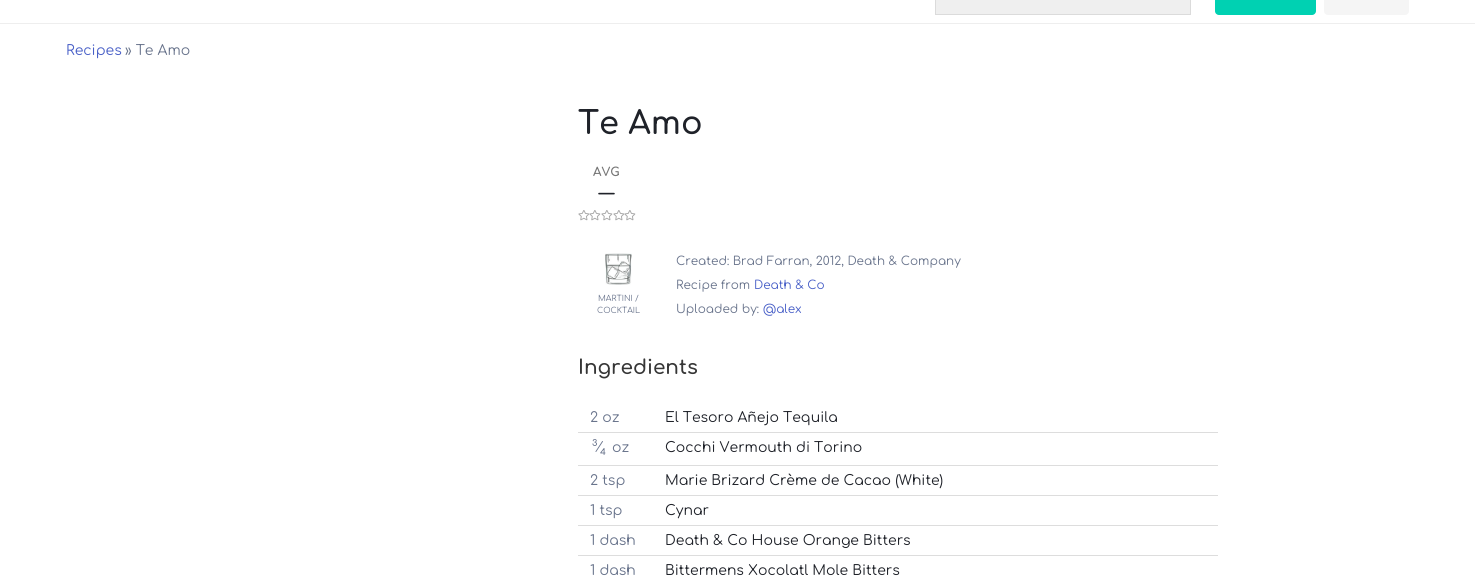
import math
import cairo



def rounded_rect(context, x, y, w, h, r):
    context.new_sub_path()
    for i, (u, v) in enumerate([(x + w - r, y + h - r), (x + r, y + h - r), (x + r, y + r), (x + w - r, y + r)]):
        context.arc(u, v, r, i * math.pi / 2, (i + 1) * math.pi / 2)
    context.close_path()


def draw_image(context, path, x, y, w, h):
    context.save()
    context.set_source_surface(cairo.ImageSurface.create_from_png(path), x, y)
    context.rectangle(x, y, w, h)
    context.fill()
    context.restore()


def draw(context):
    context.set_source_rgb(1, 1, 1)
    context.paint()
    context.set_source_rgb(238 / 255, 238 / 255, 238 / 255)
    context.rectangle(0, 23, 1475, 1)
    context.fill()
    context.set_source_rgb(239 / 255, 239 / 255, 239 / 255)
    context.rectangle(935.5, -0.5, 255, 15)
    context.fill_preserve()
    context.set_source_rgb(219 / 255, 219 / 255, 219 / 255)
    context.set_line_width(1)
    context.stroke()
    context.set_source_rgb(0, 209 / 255, 178 / 255)
    rounded_rect(context, 1215, -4, 101, 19, 4)
    context.fill()
    context.set_source_rgb(245 / 255, 245 / 255, 245 / 255)
    rounded_rect(context, 1324, -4, 85, 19, 4)
    context.fill()
    draw_image(context, "images/1.png", 578, 210, 12, 11)
    draw_image(context, "images/2.png", 589, 210, 12, 11)
    draw_image(context, "images/1.png", 601, 210, 12, 11)
    draw_image(context, "images/1.png", 613, 210, 12, 11)
    draw_image(context, "images/2.png", 624, 210, 12, 11)
    draw_image(context, "images/3.png", 605, 253, 27, 32)
    context.set_source_rgb(221 / 255, 221 / 255, 221 / 255)
    context.rectangle(578, 432, 640, 1)
    context.fill()
    context.rectangle(578, 465, 640, 1)
    context.fill()
    context.rectangle(578, 495, 640, 1)
    context.fill()
    context.rectangle(578, 525, 640, 1)
    context.fill()
    context.rectangle(578, 555, 640, 1)
    context.fill()
    context.select_font_face("Comfortaa")
    context.set_font_size(14)
    context.set_source_rgb(72 / 255, 95 / 255, 199 / 255)
    context.move_to(66, 55)
    context.show_text("Recipes")
    context.set_source_rgb(105 / 255, 116 / 255, 140 / 255)
    context.move_to(125, 55)
    context.show_text("» Te Amo")
    context.select_font_face("Comfortaa SemiBold")
    context.set_font_size(32)
    context.set_source_rgb(31 / 255, 34 / 255, 41 / 255)
    context.move_to(578, 134)
    context.show_text("Te Amo")
    context.select_font_face("Comfortaa", cairo.FontSlant.NORMAL, cairo.FontWeight.BOLD)
    context.set_font_size(12)
    context.set_source_rgb(119 / 255, 119 / 255, 119 / 255)
    context.move_to(593, 176)
    context.show_text("AVG")
    context.set_font_size(16)
    context.set_source_rgb(31 / 255, 34 / 255, 41 / 255)
    context.move_to(599, 198)
    context.show_text("—")
    context.select_font_face("Comfortaa")
    context.set_font_size(8)
    context.set_source_rgb(105 / 255, 116 / 255, 140 / 255)
    context.move_to(598, 301)
    context.show_text("MARTINI /")
    context.move_to(597, 313)
    context.show_text("COCKTAIL")
    context.set_font_size(12)
    context.move_to(676, 265)
    context.show_text("Created: Brad Farran, 2012, Death & Company")
    context.move_to(676, 289)
    context.show_text("Recipe from")
    context.set_source_rgb(72 / 255, 95 / 255, 199 / 255)
    context.move_to(754, 289)
    context.show_text("Death & Co")
    context.set_source_rgb(105 / 255, 116 / 255, 140 / 255)
    context.move_to(676, 313)
    context.show_text("Uploaded by:")
    context.set_source_rgb(72 / 255, 95 / 255, 199 / 255)
    context.move_to(763, 313)
    context.show_text("@alex")
    context.select_font_face("Comfortaa SemiBold")
    context.set_font_size(20)
    context.set_source_rgb(54 / 255, 54 / 255, 54 / 255)
    context.move_to(578, 374)
    context.show_text("Ingredients")
    context.select_font_face("Comfortaa")
    context.set_font_size(14)
    context.set_source_rgb(105 / 255, 116 / 255, 140 / 255)
    context.move_to(590, 422)
    context.show_text("2 oz")
    context.set_source_rgb(31 / 255, 34 / 255, 41 / 255)
    context.move_to(665, 422)
    context.show_text("El Tesoro Añejo Tequila")
    context.set_source_rgb(105 / 255, 116 / 255, 140 / 255)
    context.move_to(597, 452)
    context.show_text("⁄")
    context.select_font_face("Comfortaa", cairo.FontSlant.NORMAL, cairo.FontWeight.BOLD)
    context.set_font_size(9)
    context.move_to(592, 446)
    context.show_text("3")
    context.select_font_face("Comfortaa")
    context.set_font_size(14)
    context.move_to(612, 452)
    context.show_text("oz")
    context.select_font_face("Comfortaa", cairo.FontSlant.NORMAL, cairo.FontWeight.BOLD)
    context.set_font_size(9)
    context.move_to(600, 455)
    context.show_text("4")
    context.select_font_face("Comfortaa")
    context.set_font_size(14)
    context.set_source_rgb(31 / 255, 34 / 255, 41 / 255)
    context.move_to(665, 452)
    context.show_text("Cocchi Vermouth di Torino")
    context.set_source_rgb(105 / 255, 116 / 255, 140 / 255)
    context.move_to(590, 485)
    context.show_text("2 tsp")
    context.set_source_rgb(31 / 255, 34 / 255, 41 / 255)
    context.move_to(665, 485)
    context.show_text("Marie Brizard Crème de Cacao (White)")
    context.set_source_rgb(105 / 255, 116 / 255, 140 / 255)
    context.move_to(590, 515)
    context.show_text("1 tsp")
    context.set_source_rgb(31 / 255, 34 / 255, 41 / 255)
    context.move_to(665, 515)
    context.show_text("Cynar")
    context.set_source_rgb(105 / 255, 116 / 255, 140 / 255)
    context.move_to(590, 545)
    context.show_text("1 dash")
    context.set_source_rgb(31 / 255, 34 / 255, 41 / 255)
    context.move_to(665, 545)
    context.show_text("Death & Co House Orange Bitters")
    context.set_source_rgb(105 / 255, 116 / 255, 140 / 255)
    context.move_to(590, 575)
    context.show_text("1 dash")
    context.set_source_rgb(31 / 255, 34 / 255, 41 / 255)
    context.move_to(665, 575)
    context.show_text("Bittermens Xocolatl Mole Bitters")


surface = cairo.ImageSurface(cairo.Format.RGB24, 1475, 581)
context = cairo.Context(surface)
options = cairo.FontOptions()
options.set_hint_metrics(cairo.HintMetrics.OFF)
options.set_hint_style(cairo.HintStyle.NONE)
context.set_font_options(options)
context.set_miter_limit(4)
draw(context)
surface.write_to_png("out.png")
